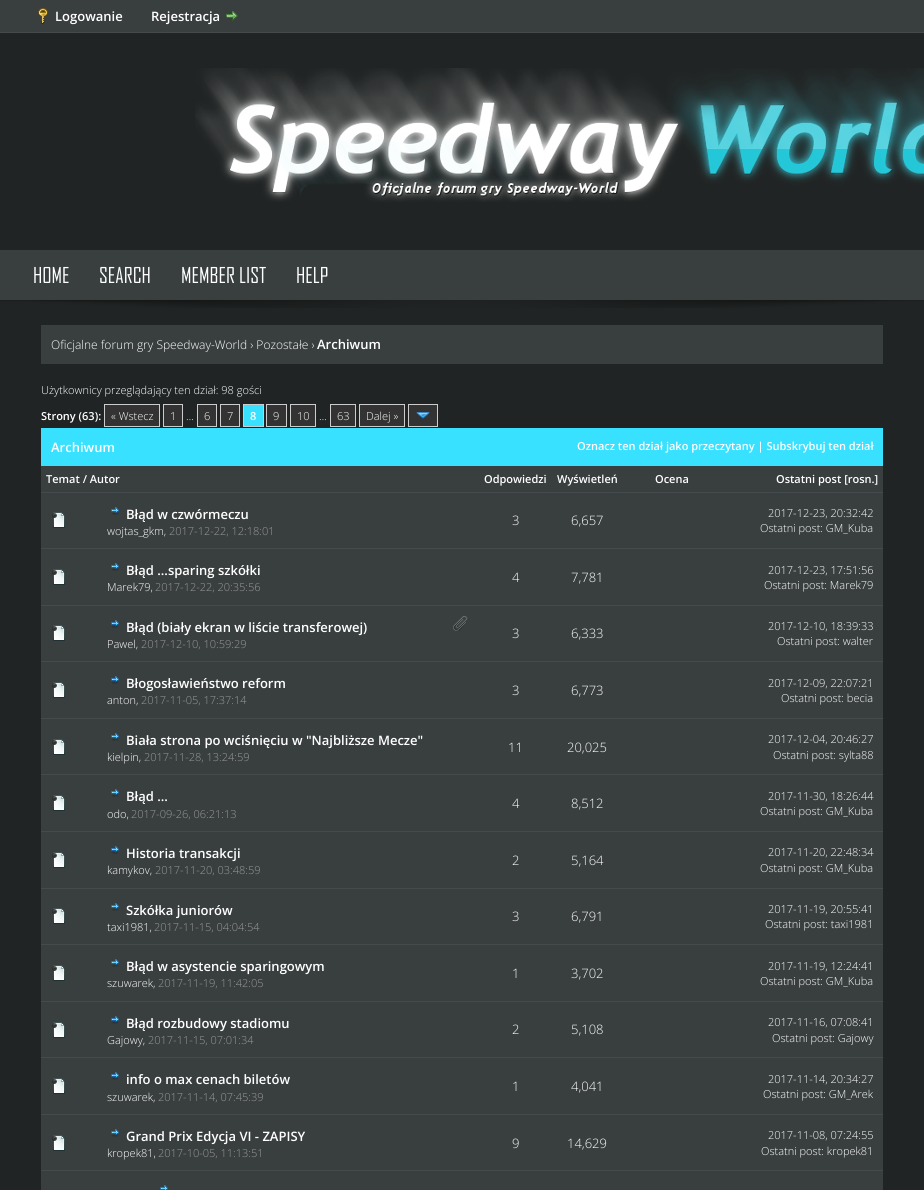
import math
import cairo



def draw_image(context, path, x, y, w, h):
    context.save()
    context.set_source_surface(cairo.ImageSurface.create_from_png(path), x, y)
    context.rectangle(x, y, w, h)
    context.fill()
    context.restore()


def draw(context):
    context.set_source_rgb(33 / 255, 36 / 255, 36 / 255)
    context.paint()
    context.set_source_rgb(57 / 255, 62 / 255, 63 / 255)
    context.rectangle(0, 0, 924, 32)
    context.fill()
    context.set_source_rgb(69 / 255, 75 / 255, 76 / 255)
    context.rectangle(0, 32, 924, 1)
    context.fill()
    draw_image(context, "images/1.png", 38, 8, 10, 16)
    draw_image(context, "images/2.png", 226, 11, 12, 10)
    draw_image(context, "images/3.png", 195, 68, 729, 134)
    context.set_source_rgb(57 / 255, 62 / 255, 63 / 255)
    context.rectangle(0, 250, 924, 50)
    context.fill()
    draw_image(context, "images/4.png", 0, 300, 924, 8)
    context.rectangle(41, 325, 842, 39)
    context.fill()
    context.set_source_rgb(51 / 255, 51 / 255, 51 / 255)
    context.rectangle(104.5, 404.5, 55, 22)
    context.fill_preserve()
    context.set_source_rgb(204 / 255, 204 / 255, 204 / 255)
    context.set_line_width(1)
    context.stroke()
    context.set_source_rgb(51 / 255, 51 / 255, 51 / 255)
    context.rectangle(163.5, 404.5, 19, 22)
    context.fill_preserve()
    context.set_source_rgb(204 / 255, 204 / 255, 204 / 255)
    context.stroke()
    context.set_source_rgb(51 / 255, 51 / 255, 51 / 255)
    context.rectangle(197.5, 404.5, 19, 22)
    context.fill_preserve()
    context.set_source_rgb(204 / 255, 204 / 255, 204 / 255)
    context.stroke()
    context.set_source_rgb(51 / 255, 51 / 255, 51 / 255)
    context.rectangle(220.5, 404.5, 19, 22)
    context.fill_preserve()
    context.set_source_rgb(204 / 255, 204 / 255, 204 / 255)
    context.stroke()
    context.set_source_rgb(56 / 255, 225 / 255, 1)
    context.rectangle(243.5, 404.5, 20, 22)
    context.fill_preserve()
    context.set_source_rgb(204 / 255, 204 / 255, 204 / 255)
    context.stroke()
    context.set_source_rgb(51 / 255, 51 / 255, 51 / 255)
    context.rectangle(266.5, 404.5, 20, 22)
    context.fill_preserve()
    context.set_source_rgb(204 / 255, 204 / 255, 204 / 255)
    context.stroke()
    context.set_source_rgb(51 / 255, 51 / 255, 51 / 255)
    context.rectangle(290.5, 404.5, 25, 22)
    context.fill_preserve()
    context.set_source_rgb(204 / 255, 204 / 255, 204 / 255)
    context.stroke()
    context.set_source_rgb(51 / 255, 51 / 255, 51 / 255)
    context.rectangle(330.5, 404.5, 25, 22)
    context.fill_preserve()
    context.set_source_rgb(204 / 255, 204 / 255, 204 / 255)
    context.stroke()
    context.set_source_rgb(51 / 255, 51 / 255, 51 / 255)
    context.rectangle(359.5, 404.5, 45, 22)
    context.fill_preserve()
    context.set_source_rgb(204 / 255, 204 / 255, 204 / 255)
    context.stroke()
    context.set_source_rgb(51 / 255, 51 / 255, 51 / 255)
    context.rectangle(408.5, 404.5, 29, 22)
    context.fill_preserve()
    context.set_source_rgb(204 / 255, 204 / 255, 204 / 255)
    context.stroke()
    draw_image(context, "images/5.png", 416, 412, 14, 7)
    context.set_source_rgb(56 / 255, 225 / 255, 1)
    context.rectangle(41, 428, 842, 38)
    context.fill()
    context.set_source_rgb(57 / 255, 62 / 255, 63 / 255)
    context.rectangle(41, 466, 842, 26)
    context.fill()
    context.rectangle(41, 493, 842, 55)
    context.fill()
    context.set_source_rgb(69 / 255, 75 / 255, 76 / 255)
    context.rectangle(41, 492, 842, 1)
    context.fill()
    draw_image(context, "images/6.png", 52, 512, 13, 16)
    draw_image(context, "images/7.png", 111, 507, 8, 8)
    context.set_source_rgb(57 / 255, 62 / 255, 63 / 255)
    context.rectangle(41, 549, 842, 56)
    context.fill()
    context.set_source_rgb(69 / 255, 75 / 255, 76 / 255)
    context.rectangle(41, 548, 842, 1)
    context.fill()
    draw_image(context, "images/6.png", 52, 569, 13, 16)
    draw_image(context, "images/7.png", 111, 563, 8, 8)
    context.set_source_rgb(57 / 255, 62 / 255, 63 / 255)
    context.rectangle(41, 606, 842, 55)
    context.fill()
    context.set_source_rgb(69 / 255, 75 / 255, 76 / 255)
    context.rectangle(41, 605, 842, 1)
    context.fill()
    draw_image(context, "images/6.png", 52, 625, 13, 16)
    draw_image(context, "images/7.png", 111, 620, 8, 8)
    draw_image(context, "images/8.png", 453, 616, 15, 15)
    context.set_source_rgb(57 / 255, 62 / 255, 63 / 255)
    context.rectangle(41, 662, 842, 56)
    context.fill()
    context.set_source_rgb(69 / 255, 75 / 255, 76 / 255)
    context.rectangle(41, 661, 842, 1)
    context.fill()
    draw_image(context, "images/6.png", 52, 682, 13, 16)
    draw_image(context, "images/7.png", 111, 676, 8, 8)
    context.set_source_rgb(57 / 255, 62 / 255, 63 / 255)
    context.rectangle(41, 719, 842, 55)
    context.fill()
    context.set_source_rgb(69 / 255, 75 / 255, 76 / 255)
    context.rectangle(41, 718, 842, 1)
    context.fill()
    draw_image(context, "images/6.png", 52, 739, 13, 16)
    draw_image(context, "images/7.png", 111, 733, 8, 8)
    context.set_source_rgb(57 / 255, 62 / 255, 63 / 255)
    context.rectangle(41, 775, 842, 56)
    context.fill()
    context.set_source_rgb(69 / 255, 75 / 255, 76 / 255)
    context.rectangle(41, 774, 842, 1)
    context.fill()
    draw_image(context, "images/6.png", 52, 795, 13, 16)
    draw_image(context, "images/7.png", 111, 789, 8, 8)
    context.set_source_rgb(57 / 255, 62 / 255, 63 / 255)
    context.rectangle(41, 832, 842, 56)
    context.fill()
    context.set_source_rgb(69 / 255, 75 / 255, 76 / 255)
    context.rectangle(41, 831, 842, 1)
    context.fill()
    draw_image(context, "images/6.png", 52, 852, 13, 16)
    draw_image(context, "images/7.png", 111, 846, 8, 8)
    context.set_source_rgb(57 / 255, 62 / 255, 63 / 255)
    context.rectangle(41, 889, 842, 55)
    context.fill()
    context.set_source_rgb(69 / 255, 75 / 255, 76 / 255)
    context.rectangle(41, 888, 842, 1)
    context.fill()
    draw_image(context, "images/6.png", 52, 908, 13, 16)
    draw_image(context, "images/7.png", 111, 903, 8, 8)
    context.set_source_rgb(57 / 255, 62 / 255, 63 / 255)
    context.rectangle(41, 945, 842, 56)
    context.fill()
    context.set_source_rgb(69 / 255, 75 / 255, 76 / 255)
    context.rectangle(41, 944, 842, 1)
    context.fill()
    draw_image(context, "images/6.png", 52, 965, 13, 16)
    draw_image(context, "images/7.png", 111, 959, 8, 8)
    context.set_source_rgb(57 / 255, 62 / 255, 63 / 255)
    context.rectangle(41, 1002, 842, 55)
    context.fill()
    context.set_source_rgb(69 / 255, 75 / 255, 76 / 255)
    context.rectangle(41, 1001, 842, 1)
    context.fill()
    draw_image(context, "images/6.png", 52, 1022, 13, 16)
    draw_image(context, "images/7.png", 111, 1016, 8, 8)
    context.set_source_rgb(57 / 255, 62 / 255, 63 / 255)
    context.rectangle(41, 1058, 842, 56)
    context.fill()
    context.set_source_rgb(69 / 255, 75 / 255, 76 / 255)
    context.rectangle(41, 1057, 842, 1)
    context.fill()
    draw_image(context, "images/6.png", 52, 1078, 13, 16)
    draw_image(context, "images/7.png", 111, 1072, 8, 8)
    context.set_source_rgb(57 / 255, 62 / 255, 63 / 255)
    context.rectangle(41, 1115, 842, 55)
    context.fill()
    context.set_source_rgb(69 / 255, 75 / 255, 76 / 255)
    context.rectangle(41, 1114, 842, 1)
    context.fill()
    draw_image(context, "images/6.png", 52, 1135, 13, 16)
    draw_image(context, "images/7.png", 111, 1129, 8, 8)
    context.set_source_rgb(57 / 255, 62 / 255, 63 / 255)
    context.rectangle(41, 1171, 842, 19)
    context.fill()
    context.set_source_rgb(69 / 255, 75 / 255, 76 / 255)
    context.rectangle(41, 1170, 842, 1)
    context.fill()
    draw_image(context, "images/9.png", 160, 1185, 8, 5)
    context.select_font_face("Open Sans SemiBold")
    context.set_font_size(13)
    context.set_source_rgb(1, 1, 1)
    context.move_to(55, 21)
    context.show_text("Logowanie")
    context.move_to(151, 21)
    context.show_text("Rejestracja")
    context.select_font_face("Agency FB")
    context.set_font_size(21)
    context.move_to(33, 283)
    context.show_text("HOME")
    context.move_to(99, 283)
    context.show_text("SEARCH")
    context.move_to(181, 283)
    context.show_text("MEMBER LIST")
    context.move_to(296, 283)
    context.show_text("HELP")
    context.select_font_face("Open Sans Light")
    context.set_font_size(12)
    context.move_to(51, 349)
    context.show_text("Oficjalne forum gry Speedway-World › Pozostałe ›")
    context.select_font_face("Open Sans SemiBold")
    context.set_font_size(13)
    context.move_to(317, 349)
    context.show_text("Archiwum")
    context.select_font_face("Open Sans Light")
    context.set_font_size(11)
    context.move_to(41, 394)
    context.show_text("Użytkownicy przeglądający ten dział: 98 gości")
    context.select_font_face("Open Sans SemiBold")
    context.move_to(41, 420)
    context.show_text("Strony (63):")
    context.select_font_face("Open Sans Light")
    context.move_to(111, 420)
    context.show_text("« Wstecz")
    context.move_to(170, 420)
    context.show_text("1")
    context.move_to(204, 420)
    context.show_text("6")
    context.move_to(227, 420)
    context.show_text("7")
    context.select_font_face("Open Sans SemiBold")
    context.move_to(250, 420)
    context.show_text("8")
    context.select_font_face("Open Sans Light")
    context.move_to(273, 420)
    context.show_text("9")
    context.move_to(297, 420)
    context.show_text("10")
    context.move_to(337, 420)
    context.show_text("63")
    context.move_to(366, 420)
    context.show_text("Dalej »")
    context.move_to(186, 420)
    context.show_text("…")
    context.move_to(319, 420)
    context.show_text("…")
    context.select_font_face("Open Sans SemiBold")
    context.set_font_size(13)
    context.move_to(51, 452)
    context.show_text("Archiwum")
    context.set_font_size(11)
    context.move_to(577, 450)
    context.show_text("Oznacz ten dział jako przeczytany | Subskrybuj ten dział")
    context.move_to(46, 483)
    context.show_text("Temat / Autor")
    context.move_to(484, 483)
    context.show_text("Odpowiedzi")
    context.move_to(557, 483)
    context.show_text("Wyświetleń")
    context.move_to(655, 483)
    context.show_text("Ocena")
    context.move_to(776, 483)
    context.show_text("Ostatni post [rosn.]")
    context.set_font_size(13)
    context.move_to(126, 519)
    context.show_text("Błąd w czwórmeczu")
    context.select_font_face("Open Sans Light")
    context.set_font_size(11)
    context.move_to(107, 535)
    context.show_text("wojtas_gkm,")
    context.set_source_rgb(153 / 255, 153 / 255, 153 / 255)
    context.move_to(169, 535)
    context.show_text("2017-12-22, 12:18:01")
    context.set_font_size(13)
    context.set_source_rgb(1, 1, 1)
    context.move_to(512, 525)
    context.show_text("3")
    context.move_to(571, 525)
    context.show_text("6,657")
    context.set_font_size(11)
    context.move_to(768, 517)
    context.show_text("2017-12-23, 20:32:42")
    context.move_to(760, 532)
    context.show_text("Ostatni post: GM_Kuba")
    context.select_font_face("Open Sans SemiBold")
    context.set_font_size(13)
    context.move_to(126, 575)
    context.show_text("Błąd ...sparing szkółki")
    context.select_font_face("Open Sans Light")
    context.set_font_size(11)
    context.move_to(107, 591)
    context.show_text("Marek79,")
    context.set_source_rgb(153 / 255, 153 / 255, 153 / 255)
    context.move_to(155, 591)
    context.show_text("2017-12-22, 20:35:56")
    context.set_font_size(13)
    context.set_source_rgb(1, 1, 1)
    context.move_to(512, 582)
    context.show_text("4")
    context.move_to(571, 582)
    context.show_text("7,781")
    context.set_font_size(11)
    context.move_to(768, 574)
    context.show_text("2017-12-23, 17:51:56")
    context.move_to(764, 589)
    context.show_text("Ostatni post: Marek79")
    context.select_font_face("Open Sans SemiBold")
    context.set_font_size(13)
    context.move_to(126, 632)
    context.show_text("Błąd (biały ekran w liście transferowej)")
    context.select_font_face("Open Sans Light")
    context.set_font_size(11)
    context.move_to(107, 648)
    context.show_text("Pawel,")
    context.set_source_rgb(153 / 255, 153 / 255, 153 / 255)
    context.move_to(141, 648)
    context.show_text("2017-12-10, 10:59:29")
    context.set_font_size(13)
    context.set_source_rgb(1, 1, 1)
    context.move_to(512, 638)
    context.show_text("3")
    context.move_to(571, 638)
    context.show_text("6,333")
    context.set_font_size(11)
    context.move_to(768, 630)
    context.show_text("2017-12-10, 18:39:33")
    context.move_to(777, 645)
    context.show_text("Ostatni post: walter")
    context.select_font_face("Open Sans SemiBold")
    context.set_font_size(13)
    context.move_to(126, 688)
    context.show_text("Błogosławieństwo reform")
    context.select_font_face("Open Sans Light")
    context.set_font_size(11)
    context.move_to(107, 704)
    context.show_text("anton,")
    context.set_source_rgb(153 / 255, 153 / 255, 153 / 255)
    context.move_to(141, 704)
    context.show_text("2017-11-05, 17:37:14")
    context.set_font_size(13)
    context.set_source_rgb(1, 1, 1)
    context.move_to(512, 695)
    context.show_text("3")
    context.move_to(571, 695)
    context.show_text("6,773")
    context.set_font_size(11)
    context.move_to(768, 687)
    context.show_text("2017-12-09, 22:07:21")
    context.move_to(781, 702)
    context.show_text("Ostatni post: becia")
    context.select_font_face("Open Sans SemiBold")
    context.set_font_size(13)
    context.move_to(126, 745)
    context.show_text("Biała strona po wciśnięciu w \"Najbliższe Mecze\"")
    context.select_font_face("Open Sans Light")
    context.set_font_size(11)
    context.move_to(107, 761)
    context.show_text("kielpin,")
    context.set_source_rgb(153 / 255, 153 / 255, 153 / 255)
    context.move_to(144, 761)
    context.show_text("2017-11-28, 13:24:59")
    context.set_font_size(13)
    context.set_source_rgb(1, 1, 1)
    context.move_to(508, 752)
    context.show_text("11")
    context.move_to(567, 752)
    context.show_text("20,025")
    context.set_font_size(11)
    context.move_to(768, 743)
    context.show_text("2017-12-04, 20:46:27")
    context.move_to(773, 759)
    context.show_text("Ostatni post: sylta88")
    context.select_font_face("Open Sans SemiBold")
    context.set_font_size(13)
    context.move_to(126, 801)
    context.show_text("Błąd ...")
    context.select_font_face("Open Sans Light")
    context.set_font_size(11)
    context.move_to(107, 818)
    context.show_text("odo,")
    context.set_source_rgb(153 / 255, 153 / 255, 153 / 255)
    context.move_to(131, 818)
    context.show_text("2017-09-26, 06:21:13")
    context.set_font_size(13)
    context.set_source_rgb(1, 1, 1)
    context.move_to(512, 808)
    context.show_text("4")
    context.move_to(571, 808)
    context.show_text("8,512")
    context.set_font_size(11)
    context.move_to(768, 800)
    context.show_text("2017-11-30, 18:26:44")
    context.move_to(760, 815)
    context.show_text("Ostatni post: GM_Kuba")
    context.select_font_face("Open Sans SemiBold")
    context.set_font_size(13)
    context.move_to(126, 858)
    context.show_text("Historia transakcji")
    context.select_font_face("Open Sans Light")
    context.set_font_size(11)
    context.move_to(107, 874)
    context.show_text("kamykov,")
    context.set_source_rgb(153 / 255, 153 / 255, 153 / 255)
    context.move_to(155, 874)
    context.show_text("2017-11-20, 03:48:59")
    context.set_font_size(13)
    context.set_source_rgb(1, 1, 1)
    context.move_to(512, 865)
    context.show_text("2")
    context.move_to(571, 865)
    context.show_text("5,164")
    context.set_font_size(11)
    context.move_to(768, 856)
    context.show_text("2017-11-20, 22:48:34")
    context.move_to(760, 872)
    context.show_text("Ostatni post: GM_Kuba")
    context.select_font_face("Open Sans SemiBold")
    context.set_font_size(13)
    context.move_to(126, 915)
    context.show_text("Szkółka juniorów")
    context.select_font_face("Open Sans Light")
    context.set_font_size(11)
    context.move_to(107, 931)
    context.show_text("taxi1981,")
    context.set_source_rgb(153 / 255, 153 / 255, 153 / 255)
    context.move_to(154, 931)
    context.show_text("2017-11-15, 04:04:54")
    context.set_font_size(13)
    context.set_source_rgb(1, 1, 1)
    context.move_to(512, 921)
    context.show_text("3")
    context.move_to(571, 921)
    context.show_text("6,791")
    context.set_font_size(11)
    context.move_to(768, 913)
    context.show_text("2017-11-19, 20:55:41")
    context.move_to(765, 928)
    context.show_text("Ostatni post: taxi1981")
    context.select_font_face("Open Sans SemiBold")
    context.set_font_size(13)
    context.move_to(126, 971)
    context.show_text("Błąd w asystencie sparingowym")
    context.select_font_face("Open Sans Light")
    context.set_font_size(11)
    context.move_to(107, 987)
    context.show_text("szuwarek,")
    context.set_source_rgb(153 / 255, 153 / 255, 153 / 255)
    context.move_to(158, 987)
    context.show_text("2017-11-19, 11:42:05")
    context.set_font_size(13)
    context.set_source_rgb(1, 1, 1)
    context.move_to(512, 978)
    context.show_text("1")
    context.move_to(571, 978)
    context.show_text("3,702")
    context.set_font_size(11)
    context.move_to(768, 970)
    context.show_text("2017-11-19, 12:24:41")
    context.move_to(760, 985)
    context.show_text("Ostatni post: GM_Kuba")
    context.select_font_face("Open Sans SemiBold")
    context.set_font_size(13)
    context.move_to(126, 1028)
    context.show_text("Błąd rozbudowy stadiomu")
    context.select_font_face("Open Sans Light")
    context.set_font_size(11)
    context.move_to(107, 1044)
    context.show_text("Gajowy,")
    context.set_source_rgb(153 / 255, 153 / 255, 153 / 255)
    context.move_to(148, 1044)
    context.show_text("2017-11-15, 07:01:34")
    context.set_font_size(13)
    context.set_source_rgb(1, 1, 1)
    context.move_to(512, 1034)
    context.show_text("2")
    context.move_to(571, 1034)
    context.show_text("5,108")
    context.set_font_size(11)
    context.move_to(768, 1026)
    context.show_text("2017-11-16, 07:08:41")
    context.move_to(772, 1042)
    context.show_text("Ostatni post: Gajowy")
    context.select_font_face("Open Sans SemiBold")
    context.set_font_size(13)
    context.move_to(126, 1084)
    context.show_text("info o max cenach biletów")
    context.select_font_face("Open Sans Light")
    context.set_font_size(11)
    context.move_to(107, 1101)
    context.show_text("szuwarek,")
    context.set_source_rgb(153 / 255, 153 / 255, 153 / 255)
    context.move_to(158, 1101)
    context.show_text("2017-11-14, 07:45:39")
    context.set_font_size(13)
    context.set_source_rgb(1, 1, 1)
    context.move_to(512, 1091)
    context.show_text("1")
    context.move_to(571, 1091)
    context.show_text("4,041")
    context.set_font_size(11)
    context.move_to(768, 1083)
    context.show_text("2017-11-14, 20:34:27")
    context.move_to(763, 1098)
    context.show_text("Ostatni post: GM_Arek")
    context.select_font_face("Open Sans SemiBold")
    context.set_font_size(13)
    context.move_to(126, 1141)
    context.show_text("Grand Prix Edycja VI - ZAPISY")
    context.select_font_face("Open Sans Light")
    context.set_font_size(11)
    context.move_to(107, 1157)
    context.show_text("kropek81,")
    context.set_source_rgb(153 / 255, 153 / 255, 153 / 255)
    context.move_to(158, 1157)
    context.show_text("2017-10-05, 11:13:51")
    context.set_font_size(13)
    context.set_source_rgb(1, 1, 1)
    context.move_to(512, 1148)
    context.show_text("9")
    context.move_to(567, 1148)
    context.show_text("14,629")
    context.set_font_size(11)
    context.move_to(768, 1139)
    context.show_text("2017-11-08, 07:24:55")
    context.move_to(761, 1155)
    context.show_text("Ostatni post: kropek81")


surface = cairo.ImageSurface(cairo.Format.RGB24, 924, 1190)
context = cairo.Context(surface)
options = cairo.FontOptions()
options.set_hint_metrics(cairo.HintMetrics.OFF)
options.set_hint_style(cairo.HintStyle.NONE)
context.set_font_options(options)
context.set_miter_limit(4)
draw(context)
surface.write_to_png("out.png")
